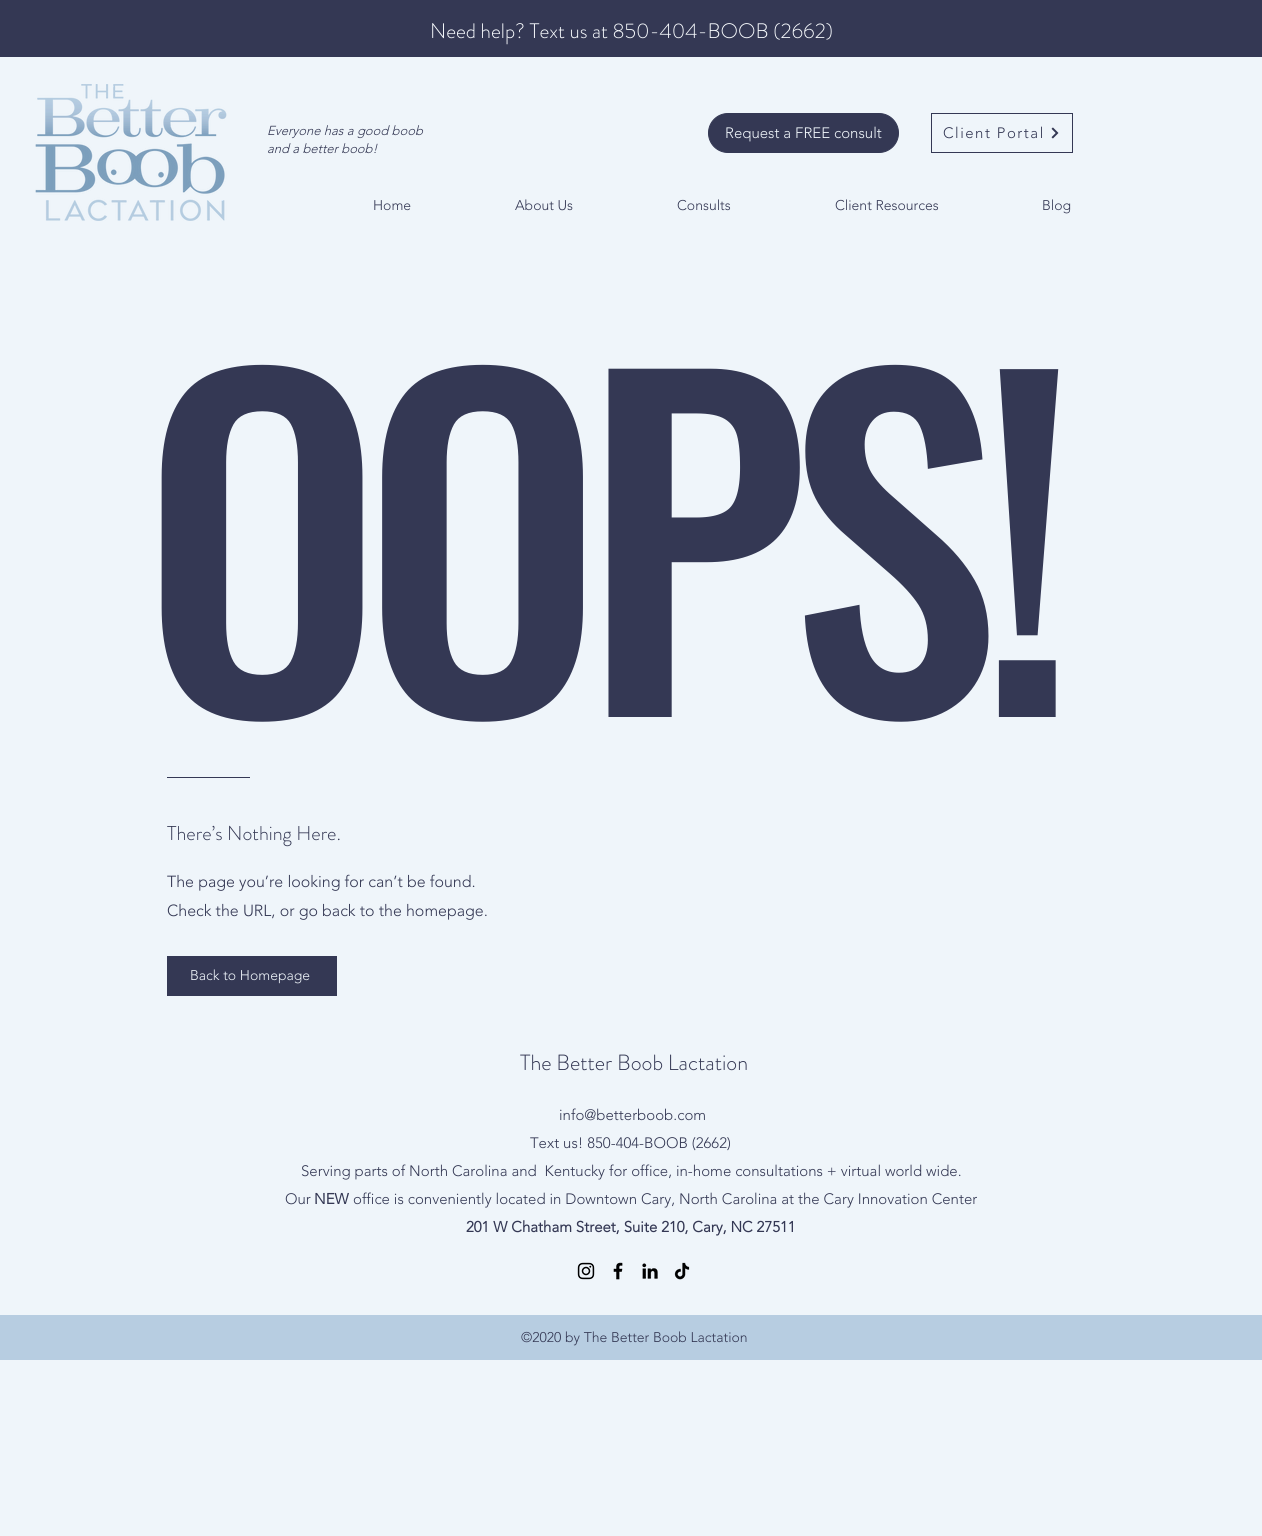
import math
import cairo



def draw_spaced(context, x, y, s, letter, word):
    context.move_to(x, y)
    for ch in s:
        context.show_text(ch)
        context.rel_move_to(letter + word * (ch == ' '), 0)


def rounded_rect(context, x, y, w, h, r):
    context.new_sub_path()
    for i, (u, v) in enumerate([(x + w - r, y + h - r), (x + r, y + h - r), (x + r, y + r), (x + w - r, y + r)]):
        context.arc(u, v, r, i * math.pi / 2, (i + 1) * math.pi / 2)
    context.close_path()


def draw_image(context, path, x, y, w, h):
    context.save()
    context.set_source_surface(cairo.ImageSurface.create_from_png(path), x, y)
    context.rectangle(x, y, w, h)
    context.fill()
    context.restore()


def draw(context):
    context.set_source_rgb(239 / 255, 245 / 255, 250 / 255)
    context.paint()
    context.set_source_rgb(52 / 255, 56 / 255, 84 / 255)
    context.rectangle(0, 0, 1262, 57)
    context.fill()
    draw_image(context, "images/1.png", 35, 84, 192, 137)
    rounded_rect(context, 708.5, 113.5, 190, 39, 19.5)
    context.fill_preserve()
    context.set_line_width(1)
    context.stroke()
    context.rectangle(931.5, 113.5, 141, 39)
    context.stroke()
    draw_image(context, "images/2.png", 1051, 127, 8, 12)
    context.rectangle(167, 777, 83, 1)
    context.fill()
    context.rectangle(167, 956, 170, 40)
    context.fill()
    draw_image(context, "images/3.png", 577, 1262, 18, 18)
    draw_image(context, "images/4.png", 613, 1262, 10, 18)
    draw_image(context, "images/5.png", 642, 1263, 16, 16)
    draw_image(context, "images/6.png", 674, 1262, 16, 18)
    context.set_source_rgb(183 / 255, 205 / 255, 225 / 255)
    context.rectangle(0, 1315, 1262, 45)
    context.fill()
    context.select_font_face("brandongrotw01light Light")
    context.set_font_size(21)
    context.set_source_rgb(247 / 255, 250 / 255, 253 / 255)
    context.move_to(430, 38)
    context.show_text("Need help? Text us at 850-404-BOOB (2662)")
    context.select_font_face("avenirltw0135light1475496 Light", cairo.FontSlant.ITALIC)
    context.set_font_size(13)
    context.set_source_rgb(52 / 255, 56 / 255, 84 / 255)
    context.move_to(267, 135)
    context.show_text("Everyone has a good boob")
    context.move_to(267, 153)
    context.show_text("and a better boob!")
    context.select_font_face("avenirltw0135light1475496 Light")
    context.set_font_size(15)
    context.set_source_rgb(239 / 255, 245 / 255, 250 / 255)
    context.move_to(725, 138)
    context.show_text("Request a FREE consult")
    context.set_source_rgb(52 / 255, 56 / 255, 84 / 255)
    draw_spaced(context, 943, 138, "Client Portal", 1.5, 0)
    context.set_font_size(14)
    context.move_to(373, 210)
    context.show_text("Home")
    context.move_to(515, 210)
    context.show_text("About Us")
    context.move_to(677, 210)
    context.show_text("Consults")
    context.move_to(835, 210)
    context.show_text("Client Resources")
    context.move_to(1042, 210)
    context.show_text("Blog")
    context.select_font_face("Oswald Medium")
    context.set_font_size(430)
    draw_spaced(context, 141, 717, "OOPS!", -21.5, 0)
    context.select_font_face("brandongrotw01light Light")
    context.set_font_size(20)
    context.move_to(167, 840)
    context.show_text("There’s Nothing Here.")
    context.select_font_face("avenirltw0135light1475496 Light")
    context.set_font_size(16)
    context.move_to(167, 887)
    context.show_text("The page you’re looking for can’t be found.")
    context.move_to(167, 916)
    context.show_text("Check the URL, or go back to the homepage.")
    context.set_font_size(14)
    context.set_source_rgb(239 / 255, 245 / 255, 250 / 255)
    context.move_to(190, 980)
    context.show_text("Back to Homepage")
    context.select_font_face("brandongrotw01light Light")
    context.set_font_size(22)
    context.set_source_rgb(52 / 255, 56 / 255, 84 / 255)
    context.move_to(520, 1070)
    context.show_text("The Better Boob Lactation")
    context.select_font_face("avenirltw0135light1475496 Light")
    context.set_font_size(15)
    context.move_to(559, 1120)
    context.show_text("info@betterboob.com")
    context.move_to(530, 1148)
    context.show_text("Text us! 850-404-BOOB (2662)")
    context.move_to(301, 1176)
    context.show_text("Serving parts of North Carolina and  Kentucky for office, in-home consultations + virtual world wide.")
    context.move_to(285, 1204)
    context.show_text("Our")
    context.select_font_face("avenirltw0135light1475496", cairo.FontSlant.NORMAL, cairo.FontWeight.BOLD)
    context.move_to(314, 1204)
    context.show_text("NEW")
    context.select_font_face("avenirltw0135light1475496 Light")
    context.move_to(353, 1204)
    context.show_text("office is conveniently located in Downtown Cary, North Carolina at the Cary Innovation Center")
    context.select_font_face("avenirltw0135light1475496", cairo.FontSlant.NORMAL, cairo.FontWeight.BOLD)
    context.move_to(466, 1232)
    context.show_text("201 W Chatham Street, Suite 210, Cary, NC 27511")
    context.select_font_face("avenirltw0135light1475496 Light")
    context.set_font_size(14)
    context.move_to(521, 1342)
    context.show_text("©2020 by The Better Boob Lactation")


surface = cairo.ImageSurface(cairo.Format.RGB24, 1262, 1536)
context = cairo.Context(surface)
options = cairo.FontOptions()
options.set_hint_metrics(cairo.HintMetrics.OFF)
options.set_hint_style(cairo.HintStyle.NONE)
context.set_font_options(options)
context.set_miter_limit(4)
draw(context)
surface.write_to_png("out.png")
